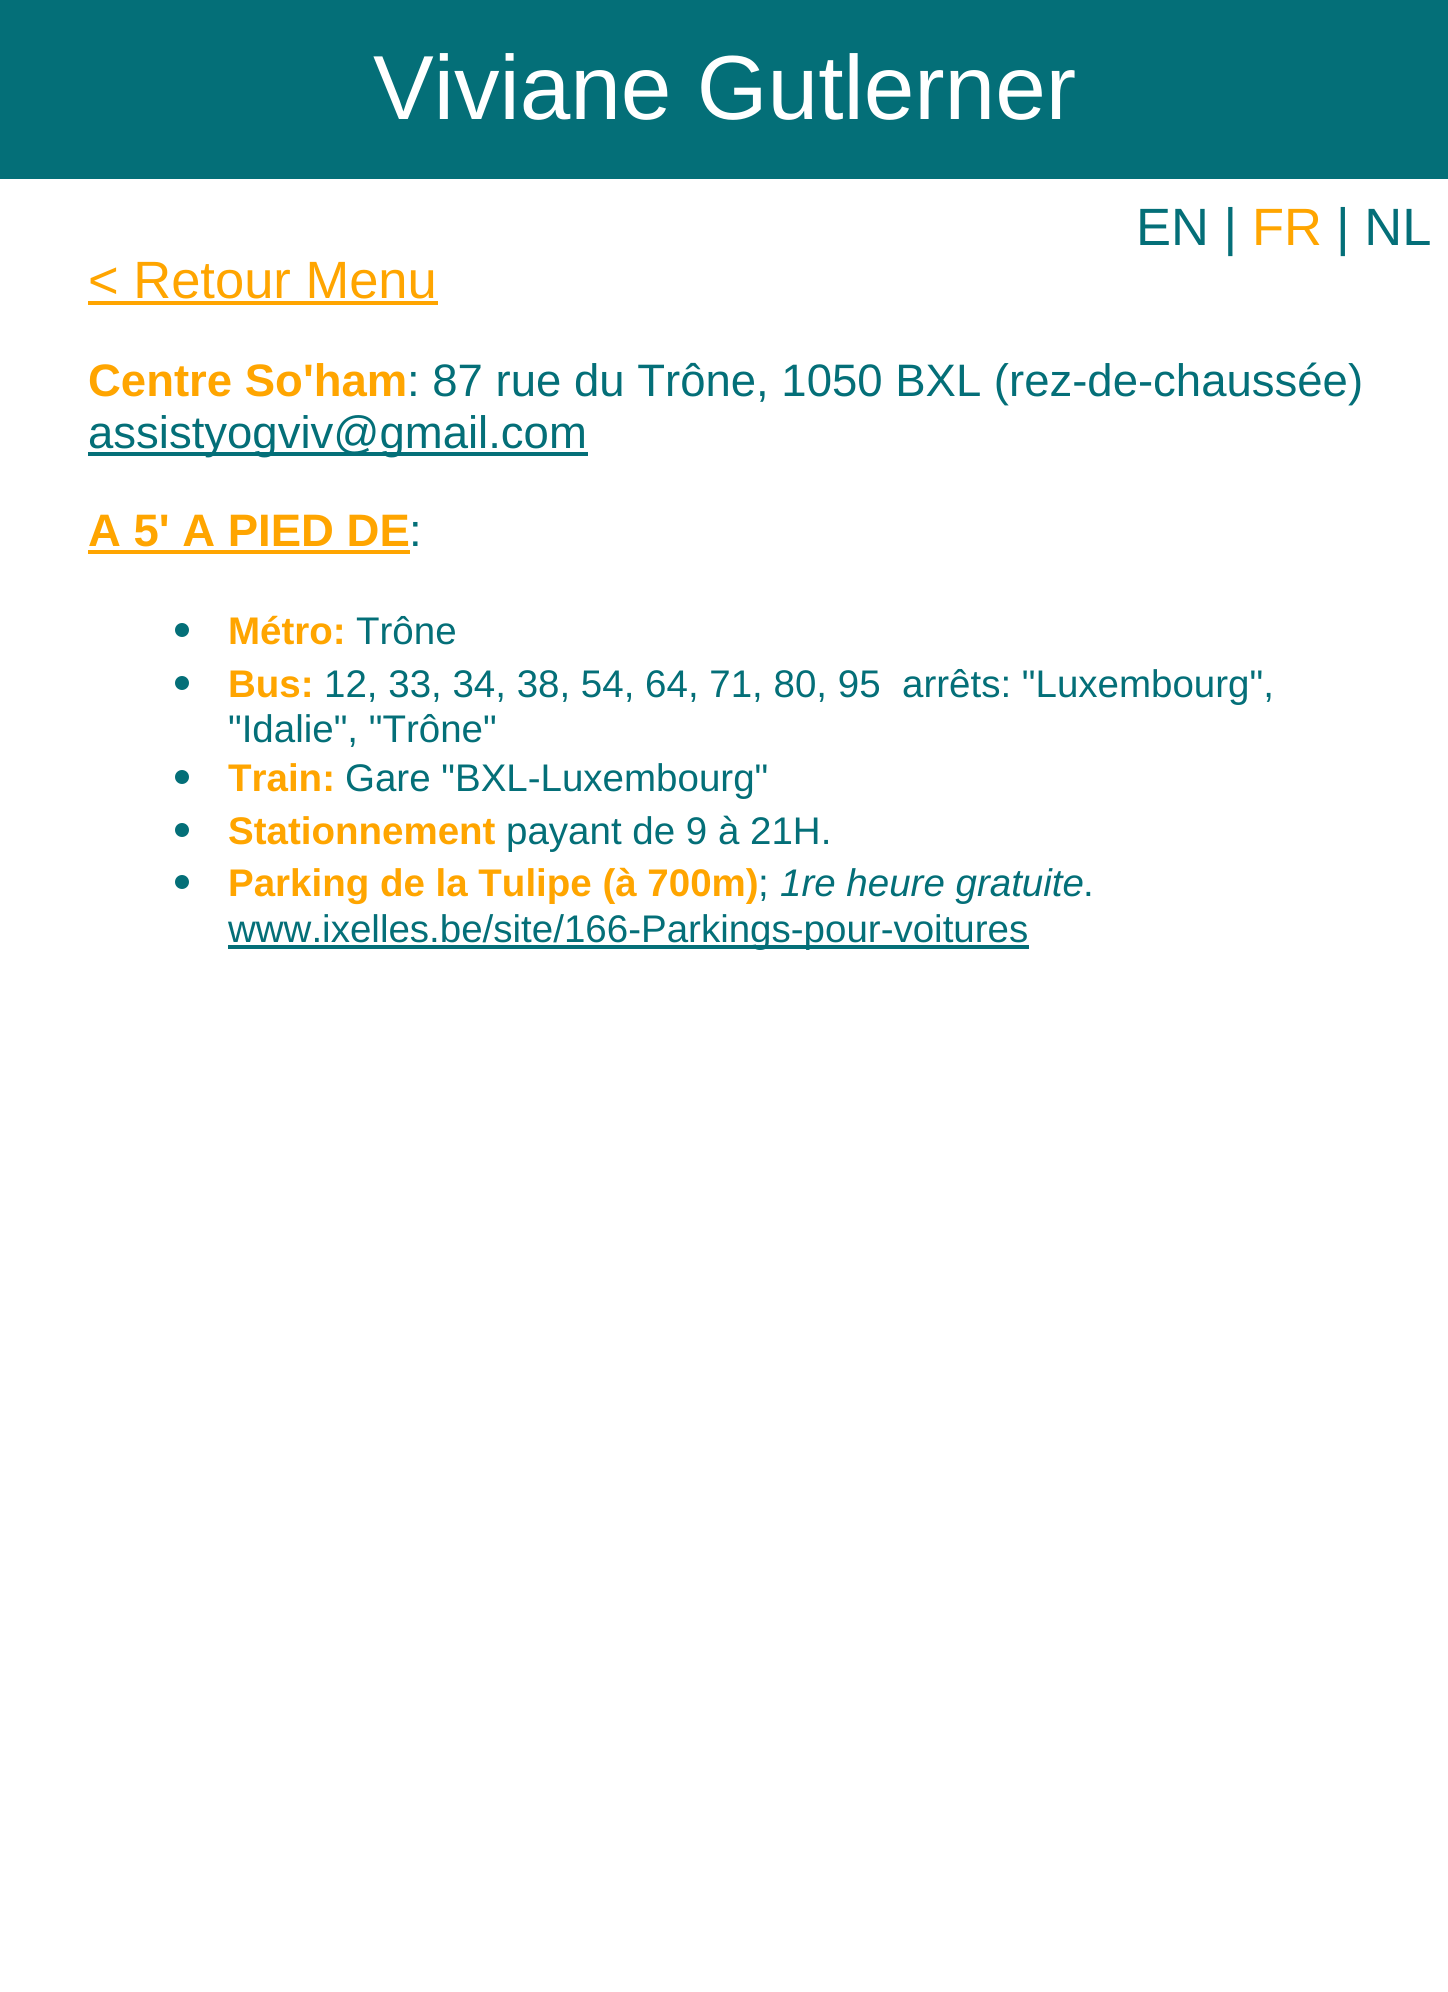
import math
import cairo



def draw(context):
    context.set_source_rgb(1, 1, 1)
    context.paint()
    context.set_source_rgb(4 / 255, 111 / 255, 120 / 255)
    context.rectangle(0, 0, 1448, 179)
    context.fill()
    context.set_source_rgb(1, 165 / 255, 0)
    context.rectangle(88, 301, 350, 4)
    context.fill()
    context.set_source_rgb(4 / 255, 111 / 255, 120 / 255)
    context.rectangle(88, 452, 500, 4)
    context.fill()
    context.set_source_rgb(1, 165 / 255, 0)
    context.rectangle(88, 550, 322, 4)
    context.fill()
    context.set_source_rgb(4 / 255, 111 / 255, 120 / 255)
    context.arc(182, 630, 7, 0, 2 * math.pi)
    context.fill()
    context.arc(182, 683, 7, 0, 2 * math.pi)
    context.fill()
    context.arc(182, 777, 7, 0, 2 * math.pi)
    context.fill()
    context.arc(182, 830, 7, 0, 2 * math.pi)
    context.fill()
    context.arc(182, 882, 7, 0, 2 * math.pi)
    context.fill()
    context.rectangle(228, 945, 801, 4)
    context.fill()
    context.select_font_face("Liberation Sans")
    context.set_font_size(91)
    context.set_source_rgb(1, 1, 1)
    context.move_to(373, 119)
    context.show_text("Viviane Gutlerner")
    context.set_font_size(52.5)
    context.set_source_rgb(4 / 255, 111 / 255, 120 / 255)
    context.move_to(1136, 245)
    context.show_text("EN |")
    context.set_source_rgb(1, 165 / 255, 0)
    context.move_to(1252, 245)
    context.show_text("FR")
    context.set_source_rgb(4 / 255, 111 / 255, 120 / 255)
    context.move_to(1336, 245)
    context.show_text("| NL")
    context.set_source_rgb(1, 165 / 255, 0)
    context.move_to(88, 298)
    context.show_text("< Retour Menu")
    context.select_font_face("Liberation Sans", cairo.FontSlant.NORMAL, cairo.FontWeight.BOLD)
    context.set_font_size(45.5)
    context.move_to(88, 396)
    context.show_text("Centre So'ham")
    context.select_font_face("Liberation Sans")
    context.set_source_rgb(4 / 255, 111 / 255, 120 / 255)
    context.move_to(407, 396)
    context.show_text(": 87 rue du Trône, 1050 BXL (rez-de-chaussée)")
    context.move_to(88, 448)
    context.show_text("assistyogviv@gmail.com")
    context.select_font_face("Liberation Sans", cairo.FontSlant.NORMAL, cairo.FontWeight.BOLD)
    context.set_source_rgb(1, 165 / 255, 0)
    context.move_to(88, 546)
    context.show_text("A 5' A PIED DE")
    context.select_font_face("Liberation Sans")
    context.set_source_rgb(4 / 255, 111 / 255, 120 / 255)
    context.move_to(409, 546)
    context.show_text(":")
    context.select_font_face("Liberation Sans", cairo.FontSlant.NORMAL, cairo.FontWeight.BOLD)
    context.set_font_size(38.5)
    context.set_source_rgb(1, 165 / 255, 0)
    context.move_to(228, 644)
    context.show_text("Métro:")
    context.select_font_face("Liberation Sans")
    context.set_source_rgb(4 / 255, 111 / 255, 120 / 255)
    context.move_to(356, 644)
    context.show_text("Trône")
    context.select_font_face("Liberation Sans", cairo.FontSlant.NORMAL, cairo.FontWeight.BOLD)
    context.set_source_rgb(1, 165 / 255, 0)
    context.move_to(228, 697)
    context.show_text("Bus:")
    context.select_font_face("Liberation Sans")
    context.set_source_rgb(4 / 255, 111 / 255, 120 / 255)
    context.move_to(324, 697)
    context.show_text("12, 33, 34, 38, 54, 64, 71, 80, 95")
    context.move_to(902, 697)
    context.show_text("arrêts: \"Luxembourg\",")
    context.move_to(228, 742)
    context.show_text("\"Idalie\", \"Trône\"")
    context.select_font_face("Liberation Sans", cairo.FontSlant.NORMAL, cairo.FontWeight.BOLD)
    context.set_source_rgb(1, 165 / 255, 0)
    context.move_to(228, 791)
    context.show_text("Train:")
    context.select_font_face("Liberation Sans")
    context.set_source_rgb(4 / 255, 111 / 255, 120 / 255)
    context.move_to(345, 791)
    context.show_text("Gare \"BXL-Luxembourg\"")
    context.select_font_face("Liberation Sans", cairo.FontSlant.NORMAL, cairo.FontWeight.BOLD)
    context.set_source_rgb(1, 165 / 255, 0)
    context.move_to(228, 844)
    context.show_text("Stationnement")
    context.select_font_face("Liberation Sans")
    context.set_source_rgb(4 / 255, 111 / 255, 120 / 255)
    context.move_to(506, 844)
    context.show_text("payant de 9 à 21H.")
    context.select_font_face("Liberation Sans", cairo.FontSlant.NORMAL, cairo.FontWeight.BOLD)
    context.set_source_rgb(1, 165 / 255, 0)
    context.move_to(228, 896)
    context.show_text("Parking de la Tulipe (à 700m)")
    context.select_font_face("Liberation Sans")
    context.set_source_rgb(4 / 255, 111 / 255, 120 / 255)
    context.move_to(758, 896)
    context.show_text(";")
    context.select_font_face("Liberation Sans", cairo.FontSlant.ITALIC)
    context.move_to(780, 896)
    context.show_text("1re heure gratuite")
    context.select_font_face("Liberation Sans")
    context.move_to(1083, 896)
    context.show_text(".")
    context.move_to(228, 942)
    context.show_text("www.ixelles.be/site/166-Parkings-pour-voitures")


surface = cairo.ImageSurface(cairo.Format.RGB24, 1448, 1992)
context = cairo.Context(surface)
options = cairo.FontOptions()
options.set_hint_metrics(cairo.HintMetrics.OFF)
options.set_hint_style(cairo.HintStyle.NONE)
context.set_font_options(options)
context.set_miter_limit(4)
draw(context)
surface.write_to_png("out.png")
